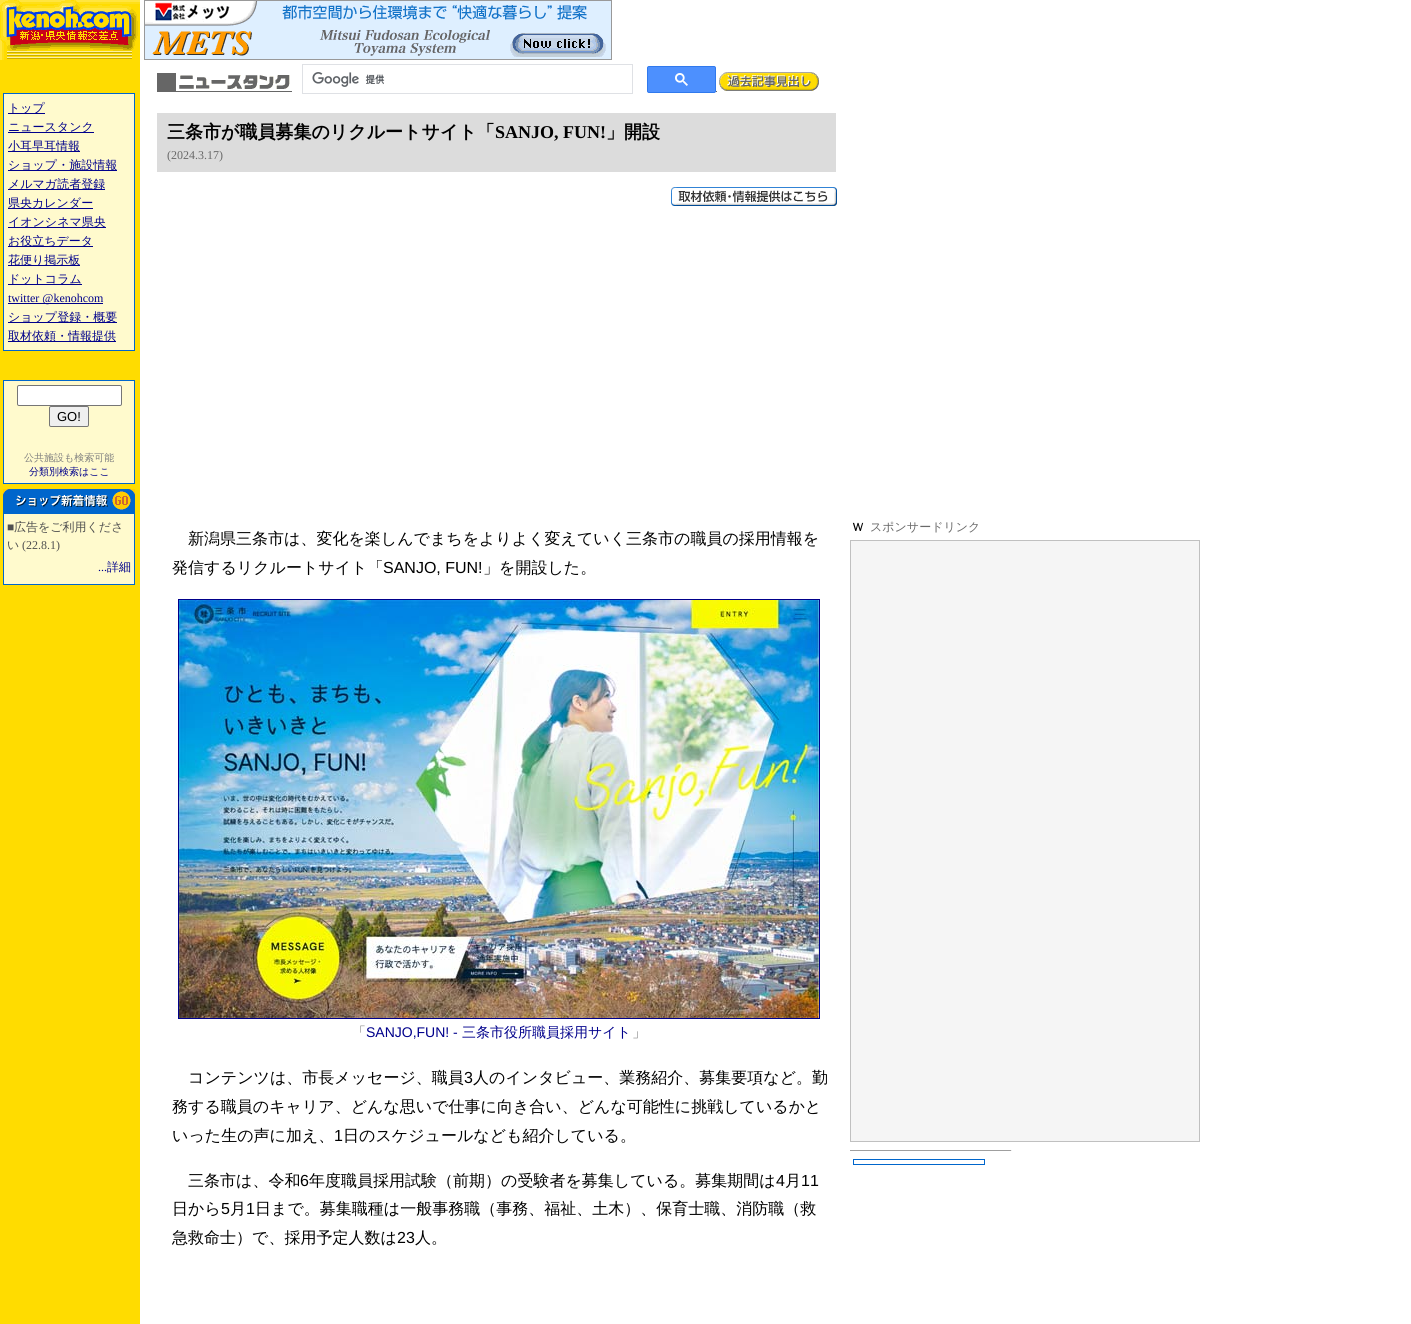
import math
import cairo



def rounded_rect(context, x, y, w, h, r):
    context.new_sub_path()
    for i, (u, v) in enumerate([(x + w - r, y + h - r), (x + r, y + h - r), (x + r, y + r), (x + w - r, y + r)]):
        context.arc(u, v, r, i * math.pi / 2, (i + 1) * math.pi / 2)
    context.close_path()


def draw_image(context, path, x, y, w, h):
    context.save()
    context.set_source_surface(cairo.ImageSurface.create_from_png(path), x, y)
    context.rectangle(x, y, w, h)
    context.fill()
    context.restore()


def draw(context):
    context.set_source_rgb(1, 1, 1)
    context.paint()
    context.set_source_rgb(1, 220 / 255, 0)
    context.rectangle(0, 60, 140, 1264)
    context.fill()
    draw_image(context, "images/1.png", 0, 0, 140, 60)
    draw_image(context, "images/2.png", 144, 0, 468, 60)
    context.set_source_rgb(0, 102 / 255, 204 / 255)
    context.rectangle(3, 93, 132, 258)
    context.fill()
    context.set_source_rgb(1, 250 / 255, 205 / 255)
    context.rectangle(4, 94, 130, 256)
    context.fill()
    context.set_source_rgb(0, 0, 139 / 255)
    context.rectangle(8, 113, 37, 1)
    context.fill()
    context.rectangle(8, 132, 86, 1)
    context.fill()
    context.rectangle(8, 151, 72, 1)
    context.fill()
    context.rectangle(8, 170, 109, 1)
    context.fill()
    context.rectangle(8, 189, 97, 1)
    context.fill()
    context.rectangle(8, 208, 85, 1)
    context.fill()
    context.rectangle(8, 227, 98, 1)
    context.fill()
    context.rectangle(8, 246, 85, 1)
    context.fill()
    context.rectangle(8, 265, 72, 1)
    context.fill()
    context.rectangle(8, 284, 74, 1)
    context.fill()
    context.rectangle(8, 303, 95, 1)
    context.fill()
    context.rectangle(8, 322, 109, 1)
    context.fill()
    context.rectangle(8, 341, 108, 1)
    context.fill()
    context.set_source_rgb(0, 102 / 255, 204 / 255)
    context.rectangle(3, 380, 132, 104)
    context.fill()
    context.set_source_rgb(1, 250 / 255, 205 / 255)
    context.rectangle(4, 381, 130, 102)
    context.fill()
    context.set_source_rgb(1, 1, 1)
    rounded_rect(context, 17.5, 385.5, 104, 20, 1.5)
    context.fill_preserve()
    context.set_source_rgb(118 / 255, 118 / 255, 118 / 255)
    context.set_line_width(1)
    context.stroke()
    context.set_source_rgb(239 / 255, 239 / 255, 239 / 255)
    rounded_rect(context, 49.5, 406.5, 39, 20, 1.5)
    context.fill_preserve()
    context.set_source_rgb(118 / 255, 118 / 255, 118 / 255)
    context.stroke()
    draw_image(context, "images/3.png", 3, 489, 132, 22)
    context.set_source_rgb(1, 250 / 255, 205 / 255)
    context.rectangle(4, 514, 130, 70)
    context.fill()
    context.set_source_rgb(0, 102 / 255, 204 / 255)
    context.rectangle(3, 511, 132, 3)
    context.fill()
    context.rectangle(134, 511, 1, 74)
    context.fill()
    context.rectangle(3, 584, 132, 1)
    context.fill()
    context.rectangle(3, 511, 1, 74)
    context.fill()
    draw_image(context, "images/4.png", 157, 73, 135, 19)
    context.rectangle(302.5, 64.5, 330, 29)
    context.set_source_rgb(223 / 255, 225 / 255, 229 / 255)
    context.stroke()
    draw_image(context, "images/5.png", 312, 72, 73, 15)
    context.set_source_rgb(77 / 255, 144 / 255, 254 / 255)
    rounded_rect(context, 647.5, 66.5, 68, 26, 1.5)
    context.fill_preserve()
    context.set_source_rgb(48 / 255, 121 / 255, 237 / 255)
    context.stroke()
    draw_image(context, "images/6.png", 675, 73, 13, 13)
    draw_image(context, "images/7.png", 716, 72, 103, 20)
    context.set_source_rgb(220 / 255, 220 / 255, 220 / 255)
    context.rectangle(157, 113, 679, 59)
    context.fill()
    draw_image(context, "images/8.png", 671, 187, 166, 19)
    context.rectangle(178.5, 599.5, 641, 419)
    context.set_source_rgb(0, 0, 139 / 255)
    context.stroke()
    draw_image(context, "images/9.png", 179, 600, 640, 418)
    context.set_source_rgb(245 / 255, 245 / 255, 245 / 255)
    context.rectangle(850.5, 540.5, 349, 601)
    context.fill_preserve()
    context.set_source_rgb(192 / 255, 192 / 255, 192 / 255)
    context.stroke()
    context.set_source_rgb(159 / 255, 159 / 255, 159 / 255)
    context.rectangle(850, 1150, 162, 1)
    context.fill()
    context.set_source_rgb(238 / 255, 238 / 255, 238 / 255)
    context.rectangle(1011, 1150, 1, 1)
    context.fill()
    context.set_source_rgb(0, 102 / 255, 204 / 255)
    context.rectangle(853, 1159, 132, 6)
    context.fill()
    context.set_source_rgb(1, 1, 1)
    context.rectangle(854, 1160, 130, 4)
    context.fill()
    context.select_font_face("WenQuanYi Zen Hei Medium")
    context.set_font_size(12)
    context.set_source_rgb(0, 0, 139 / 255)
    context.move_to(8, 112)
    context.show_text("トップ")
    context.move_to(8, 131)
    context.show_text("ニュースタンク")
    context.move_to(8, 150)
    context.show_text("小耳早耳情報")
    context.move_to(8, 169)
    context.show_text("ショップ・施設情報")
    context.move_to(8, 188)
    context.show_text("メルマガ読者登録")
    context.move_to(8, 207)
    context.show_text("県央カレンダー")
    context.move_to(8, 226)
    context.show_text("イオンシネマ県央")
    context.move_to(8, 245)
    context.show_text("お役立ちデータ")
    context.move_to(8, 264)
    context.show_text("花便り掲示板")
    context.move_to(8, 283)
    context.show_text("ドットコラム")
    context.select_font_face("Liberation Serif")
    context.move_to(8, 302)
    context.show_text("twitter @kenohcom")
    context.select_font_face("WenQuanYi Zen Hei Medium")
    context.move_to(8, 321)
    context.show_text("ショップ登録・概要")
    context.move_to(8, 340)
    context.show_text("取材依頼・情報提供")
    context.select_font_face("Liberation Sans")
    context.set_font_size(13)
    context.set_source_rgb(0, 0, 0)
    context.move_to(57, 421)
    context.show_text("GO!")
    context.select_font_face("WenQuanYi Zen Hei Medium")
    context.set_font_size(10)
    context.set_source_rgb(128 / 255, 128 / 255, 128 / 255)
    context.move_to(24, 461)
    context.show_text("公共施設も検索可能")
    context.set_source_rgb(0, 0, 139 / 255)
    context.move_to(29, 475)
    context.show_text("分類別検索はここ")
    context.select_font_face("Liberation Serif")
    context.set_font_size(12)
    context.set_source_rgb(80 / 255, 80 / 255, 80 / 255)
    context.move_to(7, 531)
    context.show_text("■")
    context.select_font_face("WenQuanYi Zen Hei Medium")
    context.move_to(14, 531)
    context.show_text("広告をご利用くださ")
    context.move_to(7, 549)
    context.show_text("い")
    context.select_font_face("Liberation Serif")
    context.move_to(22, 549)
    context.show_text("(22.8.1)")
    context.set_source_rgb(0, 0, 139 / 255)
    context.move_to(98, 571)
    context.show_text("...")
    context.select_font_face("WenQuanYi Zen Hei Medium")
    context.move_to(107, 571)
    context.show_text("詳細")
    context.select_font_face("WenQuanYi Zen Hei", cairo.FontSlant.NORMAL, cairo.FontWeight.BOLD)
    context.set_font_size(18)
    context.set_source_rgb(0, 0, 0)
    context.move_to(167, 138)
    context.show_text("三条市が職員募集のリクルートサイト「")
    context.select_font_face("Liberation Serif", cairo.FontSlant.NORMAL, cairo.FontWeight.BOLD)
    context.move_to(495, 138)
    context.show_text("SANJO, FUN!")
    context.select_font_face("WenQuanYi Zen Hei", cairo.FontSlant.NORMAL, cairo.FontWeight.BOLD)
    context.move_to(606, 138)
    context.show_text("」開設")
    context.select_font_face("Liberation Serif")
    context.set_font_size(12)
    context.set_source_rgb(105 / 255, 105 / 255, 105 / 255)
    context.move_to(167, 159)
    context.show_text("(2024.3.17)")
    context.select_font_face("WenQuanYi Zen Hei Medium")
    context.set_font_size(16)
    context.set_source_rgb(0, 0, 0)
    context.move_to(188, 544)
    context.show_text("新潟県三条市は、変化を楽しんでまちをよりよく変えていく三条市の職員の採用情報を")
    context.move_to(172, 573)
    context.show_text("発信するリクルートサイト「")
    context.select_font_face("Liberation Sans")
    context.move_to(383, 573)
    context.show_text("SANJO, FUN!")
    context.select_font_face("WenQuanYi Zen Hei Medium")
    context.move_to(483, 573)
    context.show_text("」を開設した。")
    context.set_font_size(14)
    context.set_source_rgb(105 / 255, 105 / 255, 105 / 255)
    context.move_to(352, 1037)
    context.show_text("「")
    context.select_font_face("Liberation Sans")
    context.set_source_rgb(0, 0, 139 / 255)
    context.move_to(366, 1037)
    context.show_text("SANJO,FUN! -")
    context.select_font_face("WenQuanYi Zen Hei Medium")
    context.move_to(462, 1037)
    context.show_text("三条市役所職員採用サイト")
    context.set_source_rgb(105 / 255, 105 / 255, 105 / 255)
    context.move_to(632, 1037)
    context.show_text("」")
    context.set_font_size(16)
    context.set_source_rgb(0, 0, 0)
    context.move_to(188, 1083)
    context.show_text("コンテンツは、市長メッセージ、職員")
    context.select_font_face("Liberation Sans")
    context.move_to(464, 1083)
    context.show_text("3")
    context.select_font_face("WenQuanYi Zen Hei Medium")
    context.move_to(473, 1083)
    context.show_text("人のインタビュー、業務紹介、募集要項など。勤")
    context.move_to(172, 1112)
    context.show_text("務する職員のキャリア、どんな思いで仕事に向き合い、どんな可能性に挑戦しているかと")
    context.move_to(172, 1141)
    context.show_text("いった生の声に加え、")
    context.select_font_face("Liberation Sans")
    context.move_to(334, 1141)
    context.show_text("1")
    context.select_font_face("WenQuanYi Zen Hei Medium")
    context.move_to(343, 1141)
    context.show_text("日のスケジュールなども紹介している。")
    context.move_to(188, 1186)
    context.show_text("三条市は、令和")
    context.select_font_face("Liberation Sans")
    context.move_to(300, 1186)
    context.show_text("6")
    context.select_font_face("WenQuanYi Zen Hei Medium")
    context.move_to(309, 1186)
    context.show_text("年度職員採用試験（前期）の受験者を募集している。募集期間は")
    context.select_font_face("Liberation Sans")
    context.move_to(776, 1186)
    context.show_text("4")
    context.select_font_face("WenQuanYi Zen Hei Medium")
    context.move_to(785, 1186)
    context.show_text("月")
    context.select_font_face("Liberation Sans")
    context.move_to(801, 1186)
    context.show_text("11")
    context.select_font_face("WenQuanYi Zen Hei Medium")
    context.move_to(172, 1214)
    context.show_text("日から")
    context.select_font_face("Liberation Sans")
    context.move_to(221, 1214)
    context.show_text("5")
    context.select_font_face("WenQuanYi Zen Hei Medium")
    context.move_to(230, 1214)
    context.show_text("月")
    context.select_font_face("Liberation Sans")
    context.move_to(246, 1214)
    context.show_text("1")
    context.select_font_face("WenQuanYi Zen Hei Medium")
    context.move_to(255, 1214)
    context.show_text("日まで。募集職種は一般事務職（事務、福祉、土木）、保育士職、消防職（救")
    context.move_to(172, 1243)
    context.show_text("急救命士）で、採用予定人数は")
    context.select_font_face("Liberation Sans")
    context.move_to(397, 1243)
    context.show_text("23")
    context.select_font_face("WenQuanYi Zen Hei Medium")
    context.move_to(415, 1243)
    context.show_text("人。")
    context.move_to(850, 531)
    context.show_text("ｗ")
    context.set_font_size(12)
    context.set_source_rgb(105 / 255, 105 / 255, 105 / 255)
    context.move_to(870, 531)
    context.show_text("スポンサードリンク")


surface = cairo.ImageSurface(cairo.Format.RGB24, 1411, 1324)
context = cairo.Context(surface)
options = cairo.FontOptions()
options.set_hint_metrics(cairo.HintMetrics.OFF)
options.set_hint_style(cairo.HintStyle.NONE)
context.set_font_options(options)
context.set_miter_limit(4)
draw(context)
surface.write_to_png("out.png")
